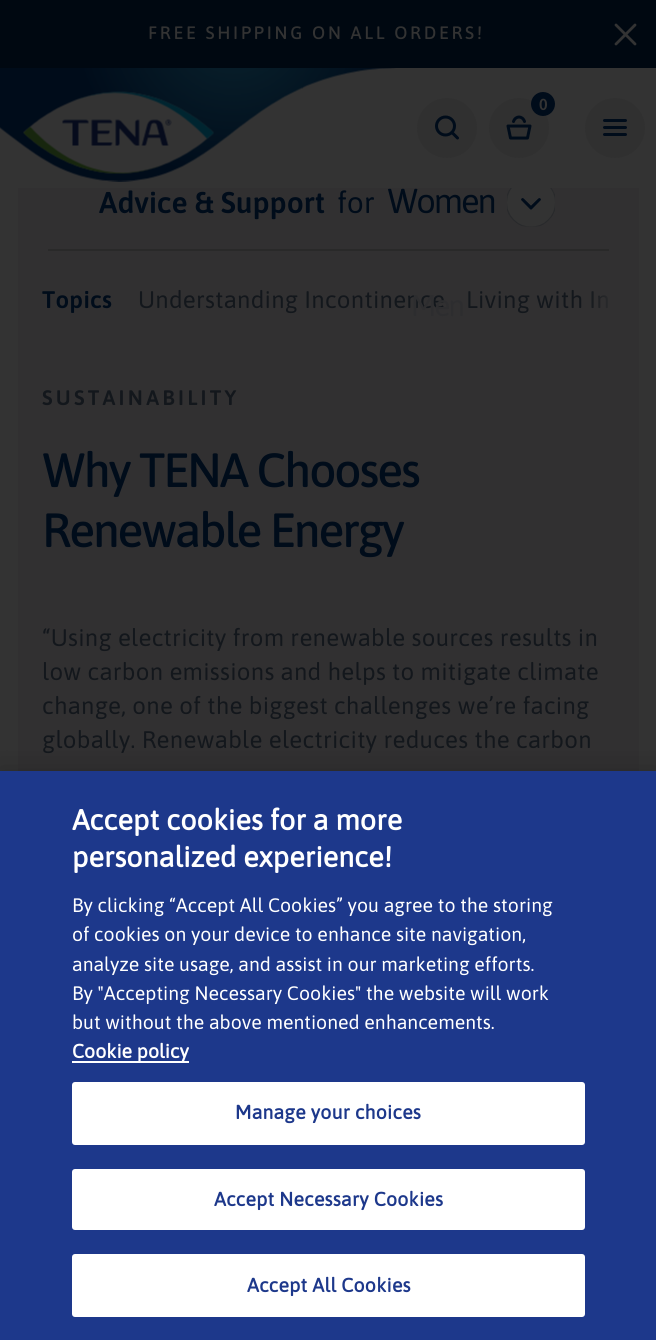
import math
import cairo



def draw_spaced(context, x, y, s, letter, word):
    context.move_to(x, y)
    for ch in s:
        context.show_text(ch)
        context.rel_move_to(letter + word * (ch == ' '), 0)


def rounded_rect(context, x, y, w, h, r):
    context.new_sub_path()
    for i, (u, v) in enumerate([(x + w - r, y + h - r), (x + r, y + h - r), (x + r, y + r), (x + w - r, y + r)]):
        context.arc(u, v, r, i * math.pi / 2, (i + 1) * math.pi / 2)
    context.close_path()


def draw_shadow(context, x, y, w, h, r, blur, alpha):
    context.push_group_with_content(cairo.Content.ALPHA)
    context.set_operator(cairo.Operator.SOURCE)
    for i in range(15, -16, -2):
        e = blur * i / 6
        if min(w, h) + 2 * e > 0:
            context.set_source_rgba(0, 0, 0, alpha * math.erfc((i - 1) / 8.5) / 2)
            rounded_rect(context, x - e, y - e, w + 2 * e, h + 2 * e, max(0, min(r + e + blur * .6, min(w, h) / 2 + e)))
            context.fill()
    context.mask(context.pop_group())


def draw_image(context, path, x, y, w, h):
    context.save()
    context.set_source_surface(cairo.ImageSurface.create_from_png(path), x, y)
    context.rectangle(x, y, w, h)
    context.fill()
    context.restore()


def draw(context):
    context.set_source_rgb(51 / 255, 51 / 255, 51 / 255)
    context.paint()
    context.set_source_rgb(0, 8 / 255, 17 / 255)
    context.rectangle(0, 0, 656, 68)
    context.fill()
    context.new_path()
    context.move_to(616, 25)
    context.line_to(635, 44)
    context.move_to(635, 25)
    context.line_to(616, 44)
    context.set_source_rgb(51 / 255, 51 / 255, 51 / 255)
    context.set_line_width(2.8)
    context.set_line_cap(cairo.LineCap.ROUND)
    context.set_line_join(cairo.LineJoin.ROUND)
    context.stroke()
    draw_image(context, "images/1.png", 0, 68, 396, 114)
    context.set_source_rgb(48 / 255, 48 / 255, 48 / 255)
    context.arc(447, 128, 30, 0, 2 * math.pi)
    context.fill()
    context.arc(445.5, 126, 9, 0, 2 * math.pi)
    context.set_source_rgb(0, 12 / 255, 26 / 255)
    context.set_line_width(3)
    context.set_line_cap(cairo.LineCap.BUTT)
    context.set_line_join(cairo.LineJoin.MITER)
    context.stroke()
    context.new_path()
    context.move_to(452, 132.5)
    context.line_to(457.5, 138)
    context.set_line_cap(cairo.LineCap.ROUND)
    context.set_line_join(cairo.LineJoin.ROUND)
    context.stroke()
    context.set_source_rgb(48 / 255, 48 / 255, 48 / 255)
    context.arc(519, 128, 30, 0, 2 * math.pi)
    context.fill()
    context.new_path()
    context.move_to(508, 126)
    context.line_to(530, 126)
    context.line_to(527.5, 138)
    context.line_to(510.5, 138)
    context.close_path()
    context.move_to(524.5, 121.5)
    context.curve_to(522.5, 115.5, 515.5, 115.5, 513.5, 121.5)
    context.set_source_rgb(0, 12 / 255, 26 / 255)
    context.stroke()
    context.arc(543, 104, 12, 0, 2 * math.pi)
    context.fill()
    context.set_source_rgb(48 / 255, 48 / 255, 48 / 255)
    context.arc(615, 128, 30, 0, 2 * math.pi)
    context.fill()
    context.new_path()
    context.move_to(604.5, 127.5)
    context.line_to(625.5, 127.5)
    context.move_to(604.5, 120.5)
    context.line_to(625.5, 120.5)
    context.move_to(604.5, 134.5)
    context.line_to(625.5, 134.5)
    context.set_source_rgb(0, 12 / 255, 26 / 255)
    context.stroke()
    context.set_source_rgb(49 / 255, 48 / 255, 49 / 255)
    context.rectangle(18, 188, 621, 583)
    context.fill()
    draw_image(context, "images/2.png", 507, 188, 48, 39)
    context.set_source_rgb(41 / 255, 41 / 255, 41 / 255)
    context.rectangle(48, 249, 561, 2)
    context.fill()
    context.set_source_rgb(0, 0, 0)
    draw_shadow(context, 0, 771, 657, 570, 0, 13.5, 0.2)
    context.set_source_rgb(29 / 255, 56 / 255, 139 / 255)
    context.rectangle(0, 771, 656, 569)
    context.fill()
    context.set_source_rgb(1, 1, 1)
    context.rectangle(72, 1061, 117, 2)
    context.fill()
    rounded_rect(context, 73, 1083, 511, 61, 2)
    context.fill_preserve()
    context.set_line_width(2)
    context.set_line_cap(cairo.LineCap.BUTT)
    context.set_line_join(cairo.LineJoin.MITER)
    context.stroke()
    rounded_rect(context, 73, 1170, 511, 59, 2)
    context.fill_preserve()
    context.stroke()
    rounded_rect(context, 73, 1255, 511, 61, 2)
    context.fill_preserve()
    context.stroke()
    context.select_font_face("Asap Medium")
    context.set_font_size(18)
    context.set_source_rgb(51 / 255, 51 / 255, 51 / 255)
    draw_spaced(context, 148, 39, "FREE SHIPPING ON ALL ORDERS!", 2.7, 0)
    context.select_font_face("Asap SemiBold")
    context.set_font_size(16)
    context.move_to(539, 110)
    context.show_text("0")
    context.set_font_size(30)
    context.set_source_rgb(0, 12 / 255, 26 / 255)
    context.move_to(99, 213)
    context.show_text("Advice & Support")
    context.select_font_face("Asap")
    context.move_to(337, 213)
    context.show_text("for")
    context.set_font_size(34.5)
    draw_spaced(context, 387, 213, "Women", -2.1, 0)
    context.select_font_face("Asap SemiBold")
    context.set_font_size(24)
    draw_spaced(context, 42, 308, "Topics", 0.27, 0)
    context.select_font_face("Asap")
    context.set_source_rgb(19 / 255, 23 / 255, 28 / 255)
    draw_spaced(context, 138, 308, "Understanding Incontinence", 0.27, 0)
    context.set_font_size(30)
    context.set_source_rgb(45 / 255, 45 / 255, 47 / 255)
    draw_spaced(context, 411, 316, "Men", -2.1, 0)
    context.set_font_size(24)
    context.set_source_rgb(19 / 255, 23 / 255, 28 / 255)
    draw_spaced(context, 466, 308, "Living with In", 0.27, 0)
    gradient = cairo.LinearGradient(564, 308, 639, 308)
    gradient.add_color_stop_rgba(0.3, 49 / 255, 48 / 255, 49 / 255, 0)
    gradient.add_color_stop_rgba(0.7, 49 / 255, 48 / 255, 49 / 255, 1)
    context.set_source(gradient)
    context.rectangle(592, 291, 16, 17)
    context.fill()
    context.select_font_face("Asap SemiBold")
    context.set_font_size(21)
    context.set_source_rgb(19 / 255, 23 / 255, 28 / 255)
    draw_spaced(context, 42, 405, "SUSTAINABILITY", 3.25, 0)
    context.select_font_face("Asap Medium")
    context.set_font_size(48)
    context.set_source_rgb(0, 12 / 255, 26 / 255)
    draw_spaced(context, 42, 487, "Why TENA Chooses", -2.1, 0)
    draw_spaced(context, 42, 547, "Renewable Energy", -2.1, 0)
    context.select_font_face("Asap")
    context.set_font_size(24)
    context.set_source_rgb(19 / 255, 23 / 255, 28 / 255)
    draw_spaced(context, 42, 646, "“Using electricity from renewable sources results in", 0.27, 0)
    draw_spaced(context, 42, 680, "low carbon emissions and helps to mitigate climate", 0.27, 0)
    draw_spaced(context, 42, 714, "change, one of the biggest challenges we’re facing", 0.27, 0)
    draw_spaced(context, 42, 748, "globally. Renewable electricity reduces the carbon", 0.27, 0)
    context.select_font_face("Asap", cairo.FontSlant.NORMAL, cairo.FontWeight.BOLD)
    context.set_font_size(28.75)
    context.set_source_rgb(1, 1, 1)
    context.move_to(72, 830)
    context.show_text("Accept cookies for a more")
    context.move_to(72, 867)
    context.show_text("personalized experience!")
    context.select_font_face("Asap")
    context.set_font_size(19.5)
    context.move_to(72, 912)
    context.show_text("By clicking “Accept All Cookies” you agree to the storing")
    context.move_to(72, 941)
    context.show_text("of cookies on your device to enhance site navigation,")
    context.move_to(72, 971)
    context.show_text("analyze site usage, and assist in our marketing efforts.")
    context.move_to(72, 1000)
    context.show_text("By \"Accepting Necessary Cookies\" the website will work")
    context.move_to(72, 1029)
    context.show_text("but without the above mentioned enhancements.")
    context.select_font_face("Asap", cairo.FontSlant.NORMAL, cairo.FontWeight.BOLD)
    context.move_to(72, 1058)
    context.show_text("Cookie policy")
    context.set_source_rgb(29 / 255, 56 / 255, 139 / 255)
    draw_spaced(context, 235, 1119, "Manage your choices", 0.2, 0)
    draw_spaced(context, 214, 1206, "Accept Necessary Cookies", 0.2, 0)
    draw_spaced(context, 247, 1292, "Accept All Cookies", 0.2, 0)


surface = cairo.ImageSurface(cairo.Format.RGB24, 656, 1340)
context = cairo.Context(surface)
options = cairo.FontOptions()
options.set_hint_metrics(cairo.HintMetrics.OFF)
options.set_hint_style(cairo.HintStyle.NONE)
context.set_font_options(options)
context.set_miter_limit(4)
draw(context)
surface.write_to_png("out.png")
